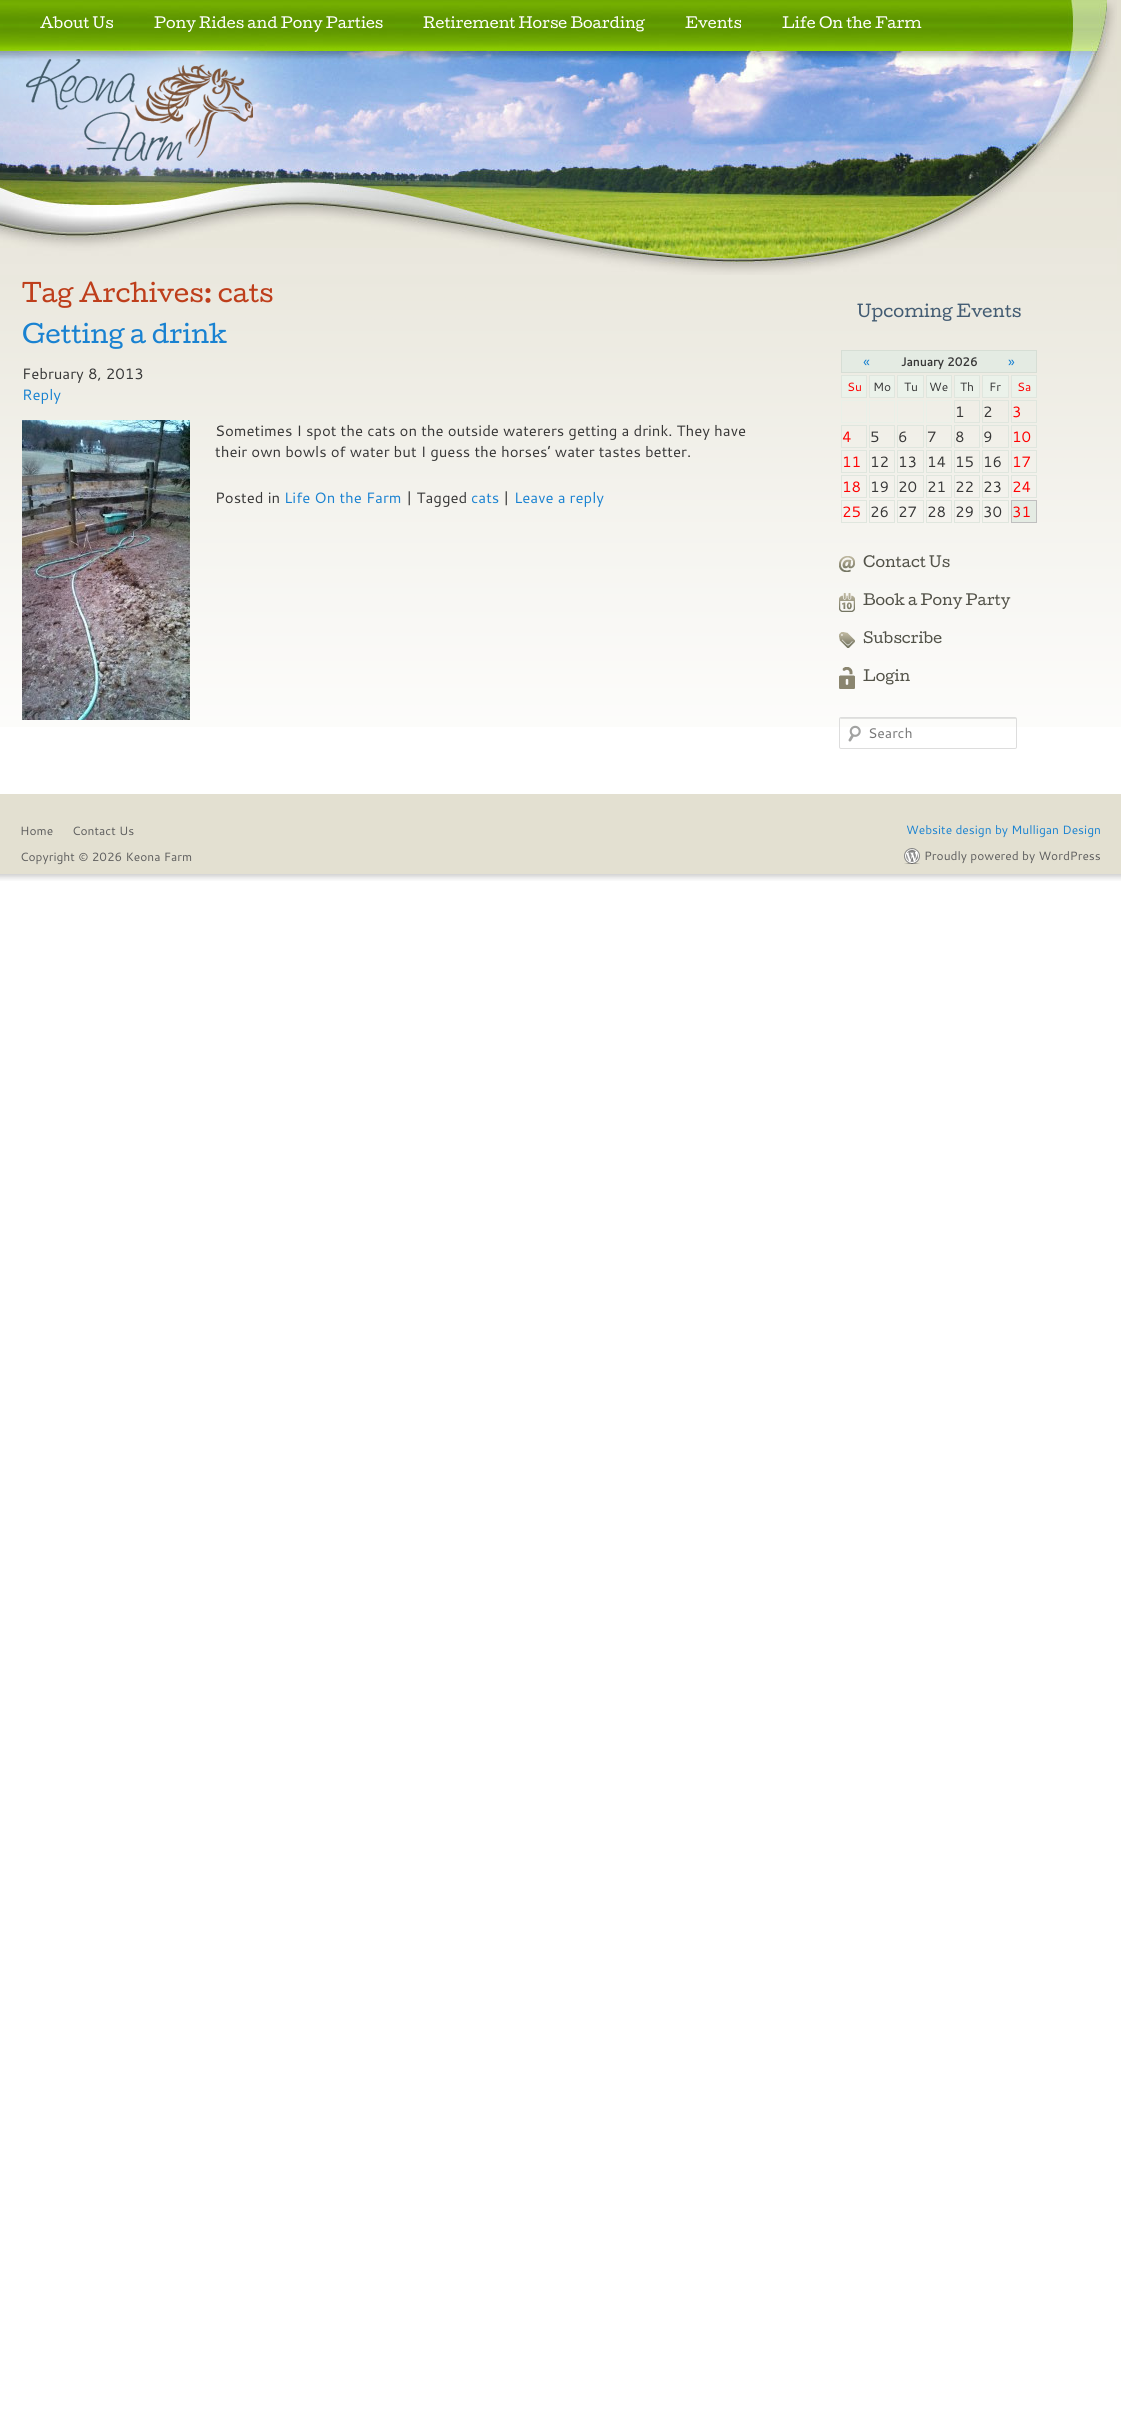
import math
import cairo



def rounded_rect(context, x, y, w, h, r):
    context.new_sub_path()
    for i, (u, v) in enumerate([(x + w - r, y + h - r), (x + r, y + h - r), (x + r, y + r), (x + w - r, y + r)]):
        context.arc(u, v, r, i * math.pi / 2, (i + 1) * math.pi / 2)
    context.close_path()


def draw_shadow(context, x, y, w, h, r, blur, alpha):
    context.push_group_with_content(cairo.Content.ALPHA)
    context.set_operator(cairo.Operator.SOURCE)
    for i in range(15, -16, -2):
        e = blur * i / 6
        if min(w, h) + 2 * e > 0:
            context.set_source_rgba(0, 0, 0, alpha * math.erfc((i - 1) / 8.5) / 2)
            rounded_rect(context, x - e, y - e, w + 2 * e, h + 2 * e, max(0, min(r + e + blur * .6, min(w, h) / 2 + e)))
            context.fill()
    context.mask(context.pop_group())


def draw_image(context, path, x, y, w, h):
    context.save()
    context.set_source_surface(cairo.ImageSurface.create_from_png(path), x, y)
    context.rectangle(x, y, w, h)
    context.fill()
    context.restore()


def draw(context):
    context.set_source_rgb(1, 1, 1)
    context.paint()
    context.save()
    context.rectangle(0, 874, 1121, 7)
    context.clip()
    context.set_source_rgb(0, 0, 0)
    draw_shadow(context, -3, -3, 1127, 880, 0, 3, 0.2)
    context.restore()
    draw_image(context, "images/1.png", 0, 0, 1121, 727)
    draw_image(context, "images/2.png", 0, 0, 1117, 275)
    context.set_source_rgb(137 / 255, 202 / 255, 0)
    context.rectangle(130, 48, 1, 1)
    context.fill()
    draw_image(context, "images/3.png", 195, 46, 188, 4)
    draw_image(context, "images/4.png", 407, 48, 245, 2)
    draw_image(context, "images/5.png", 672, 48, 89, 2)
    draw_image(context, "images/6.png", 771, 48, 170, 2)
    draw_image(context, "images/7.png", 0, 50, 293, 150)
    draw_image(context, "images/8.png", 22, 420, 168, 300)
    context.set_source_rgb(228 / 255, 235 / 255, 227 / 255)
    context.rectangle(841.5, 350.5, 195, 22)
    context.fill_preserve()
    context.set_source_rgb(214 / 255, 222 / 255, 213 / 255)
    context.set_line_width(1)
    context.stroke()
    context.set_source_rgb(235 / 255, 242 / 255, 234 / 255)
    context.rectangle(841.5, 375.5, 25, 22)
    context.fill_preserve()
    context.set_source_rgb(223 / 255, 230 / 255, 222 / 255)
    context.stroke()
    context.set_source_rgb(235 / 255, 242 / 255, 234 / 255)
    context.rectangle(869.5, 375.5, 25, 22)
    context.fill_preserve()
    context.set_source_rgb(223 / 255, 230 / 255, 222 / 255)
    context.stroke()
    context.set_source_rgb(235 / 255, 242 / 255, 234 / 255)
    context.rectangle(897.5, 375.5, 26, 22)
    context.fill_preserve()
    context.set_source_rgb(223 / 255, 230 / 255, 222 / 255)
    context.stroke()
    context.set_source_rgb(235 / 255, 242 / 255, 234 / 255)
    context.rectangle(926.5, 375.5, 25, 22)
    context.fill_preserve()
    context.set_source_rgb(223 / 255, 230 / 255, 222 / 255)
    context.stroke()
    context.set_source_rgb(235 / 255, 242 / 255, 234 / 255)
    context.rectangle(954.5, 375.5, 25, 22)
    context.fill_preserve()
    context.set_source_rgb(223 / 255, 230 / 255, 222 / 255)
    context.stroke()
    context.set_source_rgb(235 / 255, 242 / 255, 234 / 255)
    context.rectangle(982.5, 375.5, 26, 22)
    context.fill_preserve()
    context.set_source_rgb(223 / 255, 230 / 255, 222 / 255)
    context.stroke()
    context.set_source_rgb(235 / 255, 242 / 255, 234 / 255)
    context.rectangle(1011.5, 375.5, 25, 22)
    context.fill_preserve()
    context.set_source_rgb(223 / 255, 230 / 255, 222 / 255)
    context.stroke()
    context.rectangle(841.5, 400.5, 25, 22)
    context.set_source_rgb(233 / 255, 240 / 255, 232 / 255)
    context.stroke()
    context.rectangle(869.5, 400.5, 25, 22)
    context.stroke()
    context.rectangle(897.5, 400.5, 26, 22)
    context.stroke()
    context.rectangle(926.5, 400.5, 25, 22)
    context.stroke()
    context.rectangle(954.5, 400.5, 25, 22)
    context.set_source_rgb(223 / 255, 230 / 255, 222 / 255)
    context.stroke()
    context.rectangle(982.5, 400.5, 26, 22)
    context.stroke()
    context.rectangle(1011.5, 400.5, 25, 22)
    context.stroke()
    context.rectangle(841.5, 425.5, 25, 22)
    context.stroke()
    context.rectangle(869.5, 425.5, 25, 22)
    context.stroke()
    context.rectangle(897.5, 425.5, 26, 22)
    context.stroke()
    context.rectangle(926.5, 425.5, 25, 22)
    context.stroke()
    context.rectangle(954.5, 425.5, 25, 22)
    context.stroke()
    context.rectangle(982.5, 425.5, 26, 22)
    context.stroke()
    context.rectangle(1011.5, 425.5, 25, 22)
    context.stroke()
    context.rectangle(841.5, 450.5, 25, 22)
    context.stroke()
    context.rectangle(869.5, 450.5, 25, 22)
    context.stroke()
    context.rectangle(897.5, 450.5, 26, 22)
    context.stroke()
    context.rectangle(926.5, 450.5, 25, 22)
    context.stroke()
    context.rectangle(954.5, 450.5, 25, 22)
    context.stroke()
    context.rectangle(982.5, 450.5, 26, 22)
    context.stroke()
    context.rectangle(1011.5, 450.5, 25, 22)
    context.stroke()
    context.rectangle(841.5, 475.5, 25, 22)
    context.stroke()
    context.rectangle(869.5, 475.5, 25, 22)
    context.stroke()
    context.rectangle(897.5, 475.5, 26, 22)
    context.stroke()
    context.rectangle(926.5, 475.5, 25, 22)
    context.stroke()
    context.rectangle(954.5, 475.5, 25, 22)
    context.stroke()
    context.rectangle(982.5, 475.5, 26, 22)
    context.stroke()
    context.rectangle(1011.5, 475.5, 25, 22)
    context.stroke()
    context.rectangle(841.5, 500.5, 25, 22)
    context.stroke()
    context.rectangle(869.5, 500.5, 25, 22)
    context.stroke()
    context.rectangle(897.5, 500.5, 26, 22)
    context.stroke()
    context.rectangle(926.5, 500.5, 25, 22)
    context.stroke()
    context.rectangle(954.5, 500.5, 25, 22)
    context.stroke()
    context.rectangle(982.5, 500.5, 26, 22)
    context.stroke()
    context.set_source_rgb(228 / 255, 235 / 255, 227 / 255)
    context.rectangle(1011.5, 500.5, 25, 22)
    context.fill_preserve()
    context.set_source_rgb(191 / 255, 191 / 255, 191 / 255)
    context.stroke()
    draw_image(context, "images/9.png", 839, 556, 16, 16)
    draw_image(context, "images/10.png", 839, 593, 16, 19)
    draw_image(context, "images/11.png", 839, 632, 16, 16)
    draw_image(context, "images/12.png", 839, 667, 16, 22)
    draw_image(context, "images/13.png", 848, 725, 13, 17)
    context.set_source_rgb(227 / 255, 227 / 255, 225 / 255)
    context.new_path()
    context.move_to(841, 719)
    context.line_to(1015, 719)
    context.curve_to(1016, 719, 1016, 719, 1016, 720)
    context.line_to(1016, 718)
    context.line_to(841, 718)
    context.curve_to(840, 718, 840, 719, 840, 720)
    context.curve_to(840, 719, 840, 719, 841, 719)
    context.close_path()
    context.fill()
    rounded_rect(context, 839.5, 717.5, 177, 31, 1.5)
    context.set_source_rgb(221 / 255, 221 / 255, 221 / 255)
    context.stroke()
    context.set_source_rgb(227 / 255, 224 / 255, 209 / 255)
    context.rectangle(0, 794, 1121, 80)
    context.fill()
    draw_image(context, "images/14.png", 904, 848, 16, 16)
    context.select_font_face("Cutive")
    context.set_font_size(14)
    context.set_source_rgb(1, 1, 1)
    context.move_to(40, 28)
    context.show_text("About Us")
    context.move_to(154, 28)
    context.show_text("Pony Rides and Pony Parties")
    context.move_to(423, 28)
    context.show_text("Retirement Horse Boarding")
    context.move_to(685, 28)
    context.show_text("Events")
    context.move_to(782, 28)
    context.show_text("Life On the Farm")
    context.set_font_size(24)
    context.set_source_rgb(190 / 255, 62 / 255, 27 / 255)
    context.move_to(22, 302)
    context.show_text("Tag Archives: cats")
    context.set_source_rgb(25 / 255, 130 / 255, 209 / 255)
    context.move_to(22, 343)
    context.show_text("Getting a drink")
    context.select_font_face("Cantarell")
    context.set_font_size(15)
    context.set_source_rgb(55 / 255, 55 / 255, 55 / 255)
    context.move_to(22, 379)
    context.show_text("February 8, 2013")
    context.set_source_rgb(25 / 255, 130 / 255, 209 / 255)
    context.move_to(22, 400)
    context.show_text("Reply")
    context.set_source_rgb(55 / 255, 55 / 255, 55 / 255)
    context.move_to(215, 436)
    context.show_text("Sometimes I spot the cats on the outside waterers getting a drink. They have")
    context.move_to(215, 457)
    context.show_text("their own bowls of water but I guess the horses’ water tastes better.")
    context.move_to(215, 503)
    context.show_text("Posted in")
    context.set_source_rgb(25 / 255, 130 / 255, 209 / 255)
    context.move_to(284, 503)
    context.show_text("Life On the Farm")
    context.set_source_rgb(55 / 255, 55 / 255, 55 / 255)
    context.move_to(406, 503)
    context.show_text("| Tagged")
    context.set_source_rgb(25 / 255, 130 / 255, 209 / 255)
    context.move_to(471, 503)
    context.show_text("cats")
    context.set_source_rgb(55 / 255, 55 / 255, 55 / 255)
    context.move_to(503, 503)
    context.show_text("|")
    context.set_source_rgb(25 / 255, 130 / 255, 209 / 255)
    context.move_to(514, 503)
    context.show_text("Leave a reply")
    context.select_font_face("Cutive")
    context.set_font_size(16)
    context.set_source_rgb(67 / 255, 92 / 255, 115 / 255)
    context.move_to(857, 317)
    context.show_text("Upcoming Events")
    context.select_font_face("Cantarell")
    context.set_font_size(15)
    context.set_source_rgb(25 / 255, 130 / 255, 209 / 255)
    context.move_to(863, 367)
    context.show_text("«")
    context.select_font_face("Cantarell", cairo.FontSlant.NORMAL, cairo.FontWeight.BOLD)
    context.set_font_size(12)
    context.set_source_rgb(55 / 255, 55 / 255, 55 / 255)
    context.move_to(901, 366)
    context.show_text("January 2026")
    context.select_font_face("Cantarell")
    context.set_font_size(15)
    context.set_source_rgb(25 / 255, 130 / 255, 209 / 255)
    context.move_to(1008, 367)
    context.show_text("»")
    context.set_font_size(12)
    context.set_source_rgb(1, 0, 0)
    context.move_to(847, 391)
    context.show_text("Su")
    context.set_source_rgb(55 / 255, 55 / 255, 55 / 255)
    context.move_to(873, 391)
    context.show_text("Mo")
    context.move_to(904, 391)
    context.show_text("Tu")
    context.move_to(929, 391)
    context.show_text("We")
    context.move_to(960, 391)
    context.show_text("Th")
    context.move_to(989, 391)
    context.show_text("Fr")
    context.set_source_rgb(1, 0, 0)
    context.move_to(1017, 391)
    context.show_text("Sa")
    context.set_font_size(15)
    context.set_source_rgb(55 / 255, 55 / 255, 55 / 255)
    context.move_to(955, 417)
    context.show_text("1")
    context.move_to(983, 417)
    context.show_text("2")
    context.set_source_rgb(1, 0, 0)
    context.move_to(1012, 417)
    context.show_text("3")
    context.move_to(842, 442)
    context.show_text("4")
    context.set_source_rgb(55 / 255, 55 / 255, 55 / 255)
    context.move_to(870, 442)
    context.show_text("5")
    context.move_to(898, 442)
    context.show_text("6")
    context.move_to(927, 442)
    context.show_text("7")
    context.move_to(955, 442)
    context.show_text("8")
    context.move_to(983, 442)
    context.show_text("9")
    context.set_source_rgb(1, 0, 0)
    context.move_to(1012, 442)
    context.show_text("10")
    context.move_to(842, 467)
    context.show_text("11")
    context.set_source_rgb(55 / 255, 55 / 255, 55 / 255)
    context.move_to(870, 467)
    context.show_text("12")
    context.move_to(898, 467)
    context.show_text("13")
    context.move_to(927, 467)
    context.show_text("14")
    context.move_to(955, 467)
    context.show_text("15")
    context.move_to(983, 467)
    context.show_text("16")
    context.set_source_rgb(1, 0, 0)
    context.move_to(1012, 467)
    context.show_text("17")
    context.move_to(842, 492)
    context.show_text("18")
    context.set_source_rgb(55 / 255, 55 / 255, 55 / 255)
    context.move_to(870, 492)
    context.show_text("19")
    context.move_to(898, 492)
    context.show_text("20")
    context.move_to(927, 492)
    context.show_text("21")
    context.move_to(955, 492)
    context.show_text("22")
    context.move_to(983, 492)
    context.show_text("23")
    context.set_source_rgb(1, 0, 0)
    context.move_to(1012, 492)
    context.show_text("24")
    context.move_to(842, 517)
    context.show_text("25")
    context.set_source_rgb(55 / 255, 55 / 255, 55 / 255)
    context.move_to(870, 517)
    context.show_text("26")
    context.move_to(898, 517)
    context.show_text("27")
    context.move_to(927, 517)
    context.show_text("28")
    context.move_to(955, 517)
    context.show_text("29")
    context.move_to(983, 517)
    context.show_text("30")
    context.set_source_rgb(1, 0, 0)
    context.move_to(1012, 517)
    context.show_text("31")
    context.select_font_face("Cutive")
    context.set_font_size(14)
    context.set_source_rgb(82 / 255, 82 / 255, 72 / 255)
    context.move_to(863, 567)
    context.show_text("Contact Us")
    context.move_to(863, 605)
    context.show_text("Book a Pony Party")
    context.move_to(863, 643)
    context.show_text("Subscribe")
    context.move_to(863, 681)
    context.show_text("Login")
    context.select_font_face("Cantarell")
    context.set_source_rgb(117 / 255, 117 / 255, 117 / 255)
    context.move_to(868, 738)
    context.show_text("Search")
    context.set_font_size(12)
    context.set_source_rgb(93 / 255, 93 / 255, 93 / 255)
    context.move_to(20, 835)
    context.show_text("Home")
    context.move_to(72, 835)
    context.show_text("Contact Us")
    context.move_to(20, 861)
    context.show_text("Copyright © 2026 Keona Farm")
    context.set_source_rgb(25 / 255, 130 / 255, 209 / 255)
    context.move_to(906, 834)
    context.show_text("Website design by Mulligan Design")
    context.set_source_rgb(93 / 255, 93 / 255, 93 / 255)
    context.move_to(924, 860)
    context.show_text("Proudly powered by WordPress")


surface = cairo.ImageSurface(cairo.Format.RGB24, 1121, 2427)
context = cairo.Context(surface)
options = cairo.FontOptions()
options.set_hint_metrics(cairo.HintMetrics.OFF)
options.set_hint_style(cairo.HintStyle.NONE)
context.set_font_options(options)
context.set_miter_limit(4)
draw(context)
surface.write_to_png("out.png")
